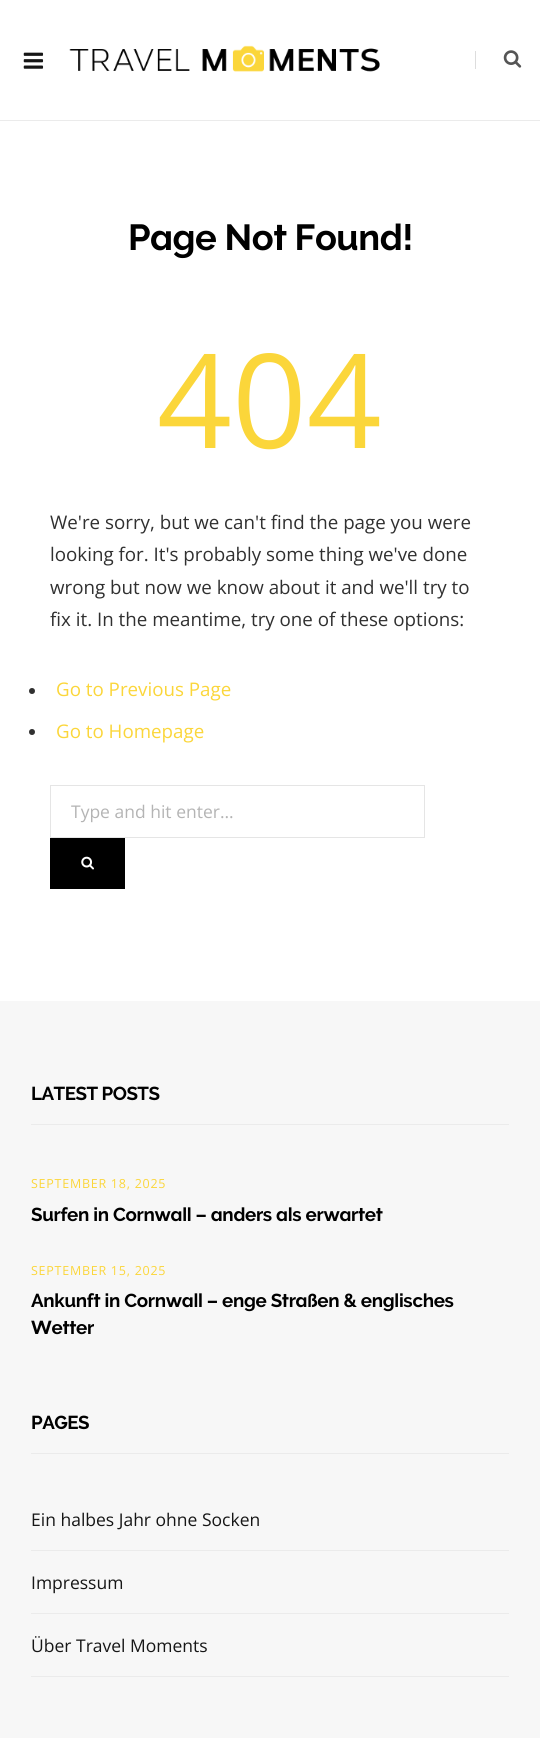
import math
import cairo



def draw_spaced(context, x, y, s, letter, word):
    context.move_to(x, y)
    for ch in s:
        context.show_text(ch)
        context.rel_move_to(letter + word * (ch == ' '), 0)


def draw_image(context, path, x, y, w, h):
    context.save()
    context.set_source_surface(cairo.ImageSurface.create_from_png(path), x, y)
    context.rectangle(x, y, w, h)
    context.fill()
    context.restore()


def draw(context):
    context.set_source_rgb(1, 1, 1)
    context.paint()
    context.set_source_rgb(235 / 255, 235 / 255, 235 / 255)
    context.rectangle(0, 120, 540, 1)
    context.fill()
    draw_image(context, "images/1.png", 23, 52, 21, 17)
    draw_image(context, "images/2.png", 69, 45, 311, 27)
    context.set_source_rgb(221 / 255, 221 / 255, 221 / 255)
    context.rectangle(475, 51, 1, 18)
    context.fill()
    draw_image(context, "images/3.png", 503, 50, 19, 18)
    context.set_source_rgb(48 / 255, 48 / 255, 48 / 255)
    context.arc(32, 691, 3, 0, 2 * math.pi)
    context.fill()
    context.arc(32, 732, 3, 0, 2 * math.pi)
    context.fill()
    context.rectangle(50.5, 785.5, 374, 52)
    context.set_source_rgb(229 / 255, 229 / 255, 229 / 255)
    context.set_line_width(1)
    context.stroke()
    context.set_source_rgb(0, 0, 0)
    context.rectangle(50, 838, 75, 51)
    context.fill()
    draw_image(context, "images/4.png", 81, 856, 13, 14)
    context.set_source_rgb(247 / 255, 247 / 255, 247 / 255)
    context.rectangle(0, 1001, 540, 737)
    context.fill()
    context.set_source_rgb(235 / 255, 235 / 255, 235 / 255)
    context.rectangle(31, 1124, 478, 1)
    context.fill()
    context.rectangle(31, 1453, 478, 1)
    context.fill()
    context.rectangle(31, 1550, 478, 1)
    context.fill()
    context.rectangle(31, 1613, 478, 1)
    context.fill()
    context.rectangle(31, 1676, 478, 1)
    context.fill()
    context.select_font_face("Raleway", cairo.FontSlant.NORMAL, cairo.FontWeight.BOLD)
    context.set_font_size(36.25)
    context.set_source_rgb(0, 0, 0)
    draw_spaced(context, 128, 250, "Page Not Found!", -0.5, 0)
    context.select_font_face("Open Sans")
    context.set_font_size(131)
    context.set_source_rgb(251 / 255, 214 / 255, 58 / 255)
    context.move_to(157, 448)
    context.show_text("404")
    context.set_font_size(18.75)
    context.set_source_rgb(48 / 255, 48 / 255, 48 / 255)
    context.move_to(50, 529)
    context.show_text("We're sorry, but we can't find the page you were")
    context.move_to(50, 561)
    context.show_text("looking for. It's probably some thing we've done")
    context.move_to(50, 594)
    context.show_text("wrong but now we know about it and we'll try to")
    context.move_to(50, 626)
    context.show_text("fix it. In the meantime, try one of these options:")
    context.set_source_rgb(251 / 255, 214 / 255, 58 / 255)
    context.move_to(56, 696)
    context.show_text("Go to Previous Page")
    context.move_to(56, 738)
    context.show_text("Go to Homepage")
    context.set_font_size(17.5)
    context.set_source_rgb(180 / 255, 180 / 255, 180 / 255)
    context.move_to(71, 818)
    context.show_text("Type and hit enter...")
    context.select_font_face("Raleway", cairo.FontSlant.NORMAL, cairo.FontWeight.BOLD)
    context.set_font_size(18.75)
    context.set_source_rgb(0, 0, 0)
    draw_spaced(context, 31, 1100, "LATEST POSTS", -0.5, 0)
    context.select_font_face("Open Sans")
    context.set_font_size(12.5)
    context.set_source_rgb(251 / 255, 214 / 255, 58 / 255)
    draw_spaced(context, 31, 1188, "SEPTEMBER 18, 2025", 0.75, 0)
    context.select_font_face("Raleway", cairo.FontSlant.NORMAL, cairo.FontWeight.BOLD)
    context.set_font_size(18.75)
    context.set_source_rgb(0, 0, 0)
    draw_spaced(context, 31, 1221, "Surfen in Cornwall – anders als erwartet", -0.3, 0)
    context.select_font_face("Open Sans")
    context.set_font_size(12.5)
    context.set_source_rgb(251 / 255, 214 / 255, 58 / 255)
    draw_spaced(context, 31, 1275, "SEPTEMBER 15, 2025", 0.75, 0)
    context.select_font_face("Raleway", cairo.FontSlant.NORMAL, cairo.FontWeight.BOLD)
    context.set_font_size(18.75)
    context.set_source_rgb(0, 0, 0)
    draw_spaced(context, 31, 1307, "Ankunft in Cornwall – enge Straßen & englisches", -0.3, 0)
    draw_spaced(context, 31, 1334, "Wetter", -0.3, 0)
    draw_spaced(context, 31, 1429, "PAGES", -0.5, 0)
    context.select_font_face("Open Sans")
    context.set_font_size(17.5)
    context.set_source_rgb(22 / 255, 22 / 255, 22 / 255)
    context.move_to(31, 1526)
    context.show_text("Ein halbes Jahr ohne Socken")
    context.move_to(31, 1589)
    context.show_text("Impressum")
    context.move_to(31, 1652)
    context.show_text("Über Travel Moments")


surface = cairo.ImageSurface(cairo.Format.RGB24, 540, 1738)
context = cairo.Context(surface)
options = cairo.FontOptions()
options.set_hint_metrics(cairo.HintMetrics.OFF)
options.set_hint_style(cairo.HintStyle.NONE)
context.set_font_options(options)
context.set_miter_limit(4)
draw(context)
surface.write_to_png("out.png")
